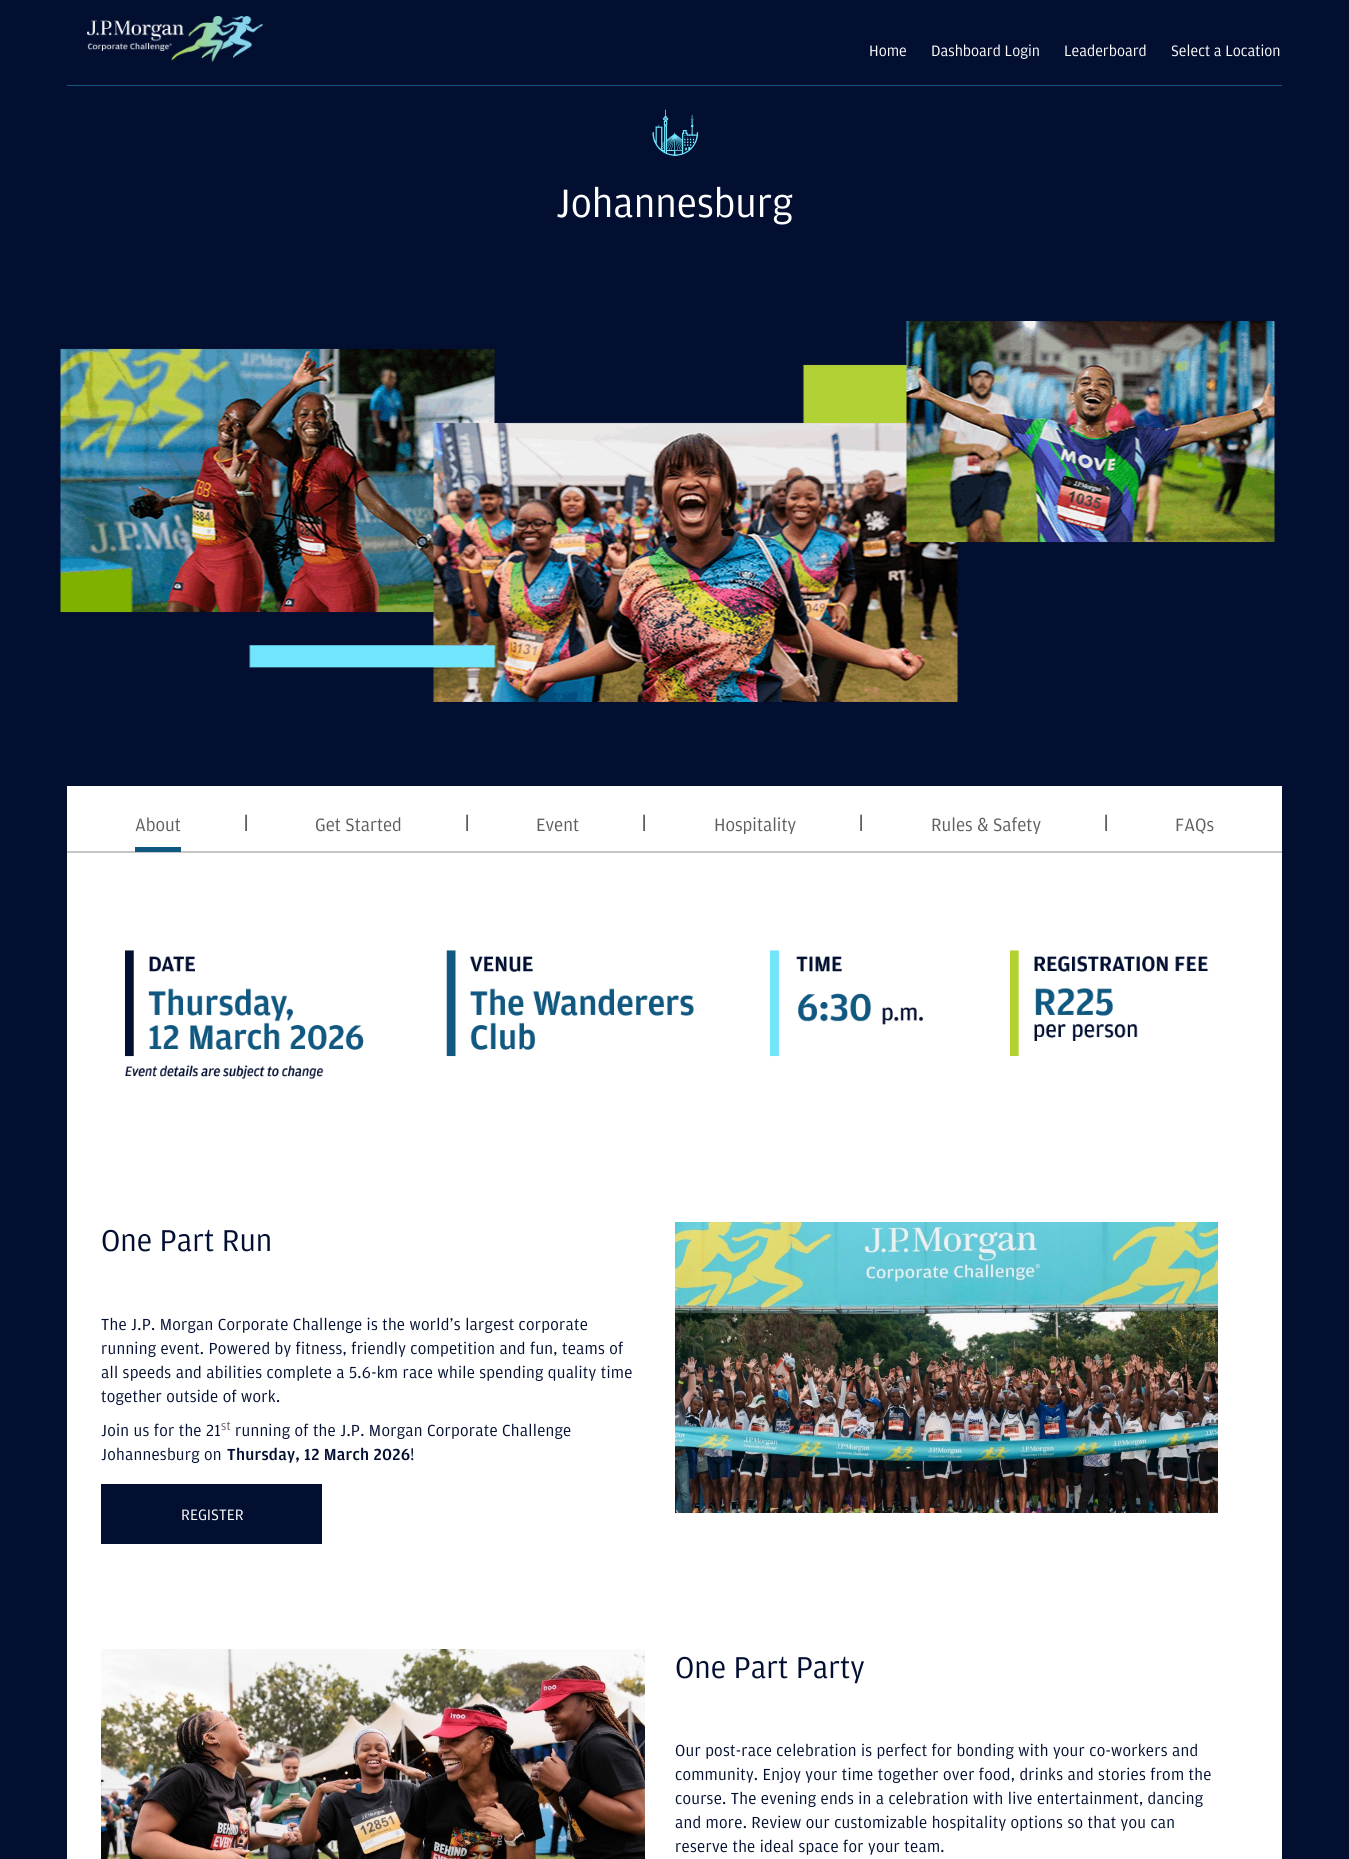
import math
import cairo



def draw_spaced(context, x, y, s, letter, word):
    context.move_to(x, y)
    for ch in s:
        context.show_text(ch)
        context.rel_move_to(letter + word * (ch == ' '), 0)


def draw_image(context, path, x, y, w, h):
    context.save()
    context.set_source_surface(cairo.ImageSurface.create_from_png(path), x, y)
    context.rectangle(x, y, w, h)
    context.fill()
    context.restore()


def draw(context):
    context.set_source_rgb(2 / 255, 15 / 255, 49 / 255)
    context.paint()
    context.set_source_rgb(17 / 255, 88 / 255, 128 / 255)
    context.rectangle(67, 85, 1215, 1)
    context.fill()
    draw_image(context, "images/1.png", 87, 16, 176, 46)
    draw_image(context, "images/2.png", 652, 109, 47, 47)
    draw_image(context, "images/3.png", 60, 321, 1215, 381)
    context.set_source_rgb(1, 1, 1)
    context.rectangle(67, 853, 1215, 1006)
    context.fill()
    context.rectangle(67, 786, 1215, 65)
    context.fill()
    context.set_source_rgb(200 / 255, 198 / 255, 197 / 255)
    context.rectangle(67, 851, 1215, 2)
    context.fill()
    context.set_source_rgb(17 / 255, 88 / 255, 128 / 255)
    context.rectangle(135, 847, 46, 5)
    context.fill()
    draw_image(context, "images/4.png", 125, 950, 1084, 130)
    context.set_source_rgb(2 / 255, 15 / 255, 49 / 255)
    context.rectangle(101, 1484, 221, 60)
    context.fill()
    draw_image(context, "images/5.png", 675, 1222, 543, 291)
    draw_image(context, "images/6.png", 101, 1649, 544, 210)
    context.select_font_face("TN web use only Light")
    context.set_font_size(16)
    context.set_source_rgb(1, 1, 1)
    context.move_to(869, 56)
    context.show_text("Home")
    context.move_to(931, 56)
    context.show_text("Dashboard Login")
    context.move_to(1064, 56)
    context.show_text("Leaderboard")
    context.move_to(1171, 56)
    context.show_text("Select a Location")
    context.set_font_size(42)
    context.move_to(556, 217)
    context.show_text("Johannesburg")
    context.set_font_size(19)
    context.set_source_rgb(95 / 255, 93 / 255, 93 / 255)
    context.move_to(135, 831)
    context.show_text("About")
    context.select_font_face("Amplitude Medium")
    context.set_font_size(20)
    context.move_to(244, 829)
    context.show_text("|")
    context.select_font_face("TN web use only Light")
    context.set_font_size(19)
    context.move_to(315, 831)
    context.show_text("Get Started")
    context.select_font_face("Amplitude Medium")
    context.set_font_size(20)
    context.move_to(465, 829)
    context.show_text("|")
    context.select_font_face("TN web use only Light")
    context.set_font_size(19)
    context.move_to(536, 831)
    context.show_text("Event")
    context.select_font_face("Amplitude Medium")
    context.set_font_size(20)
    context.move_to(642, 829)
    context.show_text("|")
    context.select_font_face("TN web use only Light")
    context.set_font_size(19)
    context.move_to(714, 831)
    context.show_text("Hospitality")
    context.select_font_face("Amplitude Medium")
    context.set_font_size(20)
    context.move_to(859, 829)
    context.show_text("|")
    context.select_font_face("TN web use only Light")
    context.set_font_size(19)
    context.move_to(931, 831)
    context.show_text("Rules & Safety")
    context.select_font_face("Amplitude Medium")
    context.set_font_size(20)
    context.move_to(1104, 829)
    context.show_text("|")
    context.select_font_face("TN web use only Light")
    context.set_font_size(19)
    context.move_to(1175, 831)
    context.show_text("FAQs")
    context.set_font_size(32)
    context.set_source_rgb(2 / 255, 15 / 255, 49 / 255)
    context.move_to(101, 1251)
    context.show_text("One Part Run")
    context.set_font_size(17)
    draw_spaced(context, 101, 1330, "The J.P. Morgan Corporate Challenge is the world’s largest corporate", 0.25, 0)
    draw_spaced(context, 101, 1354, "running event. Powered by fitness, friendly competition and fun, teams of", 0.25, 0)
    draw_spaced(context, 101, 1378, "all speeds and abilities complete a 5.6-km race while spending quality time", 0.25, 0)
    draw_spaced(context, 101, 1402, "together outside of work.", 0.25, 0)
    draw_spaced(context, 101, 1436, "Join us for the 21", 0.25, 0)
    context.set_font_size(13)
    context.set_source_rgb(95 / 255, 93 / 255, 93 / 255)
    draw_spaced(context, 221, 1430, "st", 0.25, 0)
    context.set_font_size(17)
    context.set_source_rgb(2 / 255, 15 / 255, 49 / 255)
    draw_spaced(context, 235, 1436, "running of the J.P. Morgan Corporate Challenge", 0.25, 0)
    draw_spaced(context, 101, 1460, "Johannesburg on", 0.25, 0)
    context.select_font_face("Amplitude Medium")
    draw_spaced(context, 227, 1460, "Thursday, 12 March 2026", 0.25, 0)
    context.select_font_face("TN web use only Light")
    draw_spaced(context, 410, 1460, "!", 0.25, 0)
    context.set_font_size(16)
    context.set_source_rgb(1, 1, 1)
    context.move_to(181, 1520)
    context.show_text("REGISTER")
    context.set_font_size(32)
    context.set_source_rgb(2 / 255, 15 / 255, 49 / 255)
    context.move_to(675, 1678)
    context.show_text("One Part Party")
    context.set_font_size(17)
    draw_spaced(context, 675, 1756, "Our post-race celebration is perfect for bonding with your co-workers and", 0.25, 0)
    draw_spaced(context, 675, 1780, "community. Enjoy your time together over food, drinks and stories from the", 0.25, 0)
    draw_spaced(context, 675, 1804, "course. The evening ends in a celebration with live entertainment, dancing", 0.25, 0)
    draw_spaced(context, 675, 1828, "and more. Review our customizable hospitality options so that you can", 0.25, 0)
    draw_spaced(context, 675, 1852, "reserve the ideal space for your team.", 0.25, 0)


surface = cairo.ImageSurface(cairo.Format.RGB24, 1349, 1859)
context = cairo.Context(surface)
options = cairo.FontOptions()
options.set_hint_metrics(cairo.HintMetrics.OFF)
options.set_hint_style(cairo.HintStyle.NONE)
context.set_font_options(options)
context.set_miter_limit(4)
draw(context)
surface.write_to_png("out.png")
